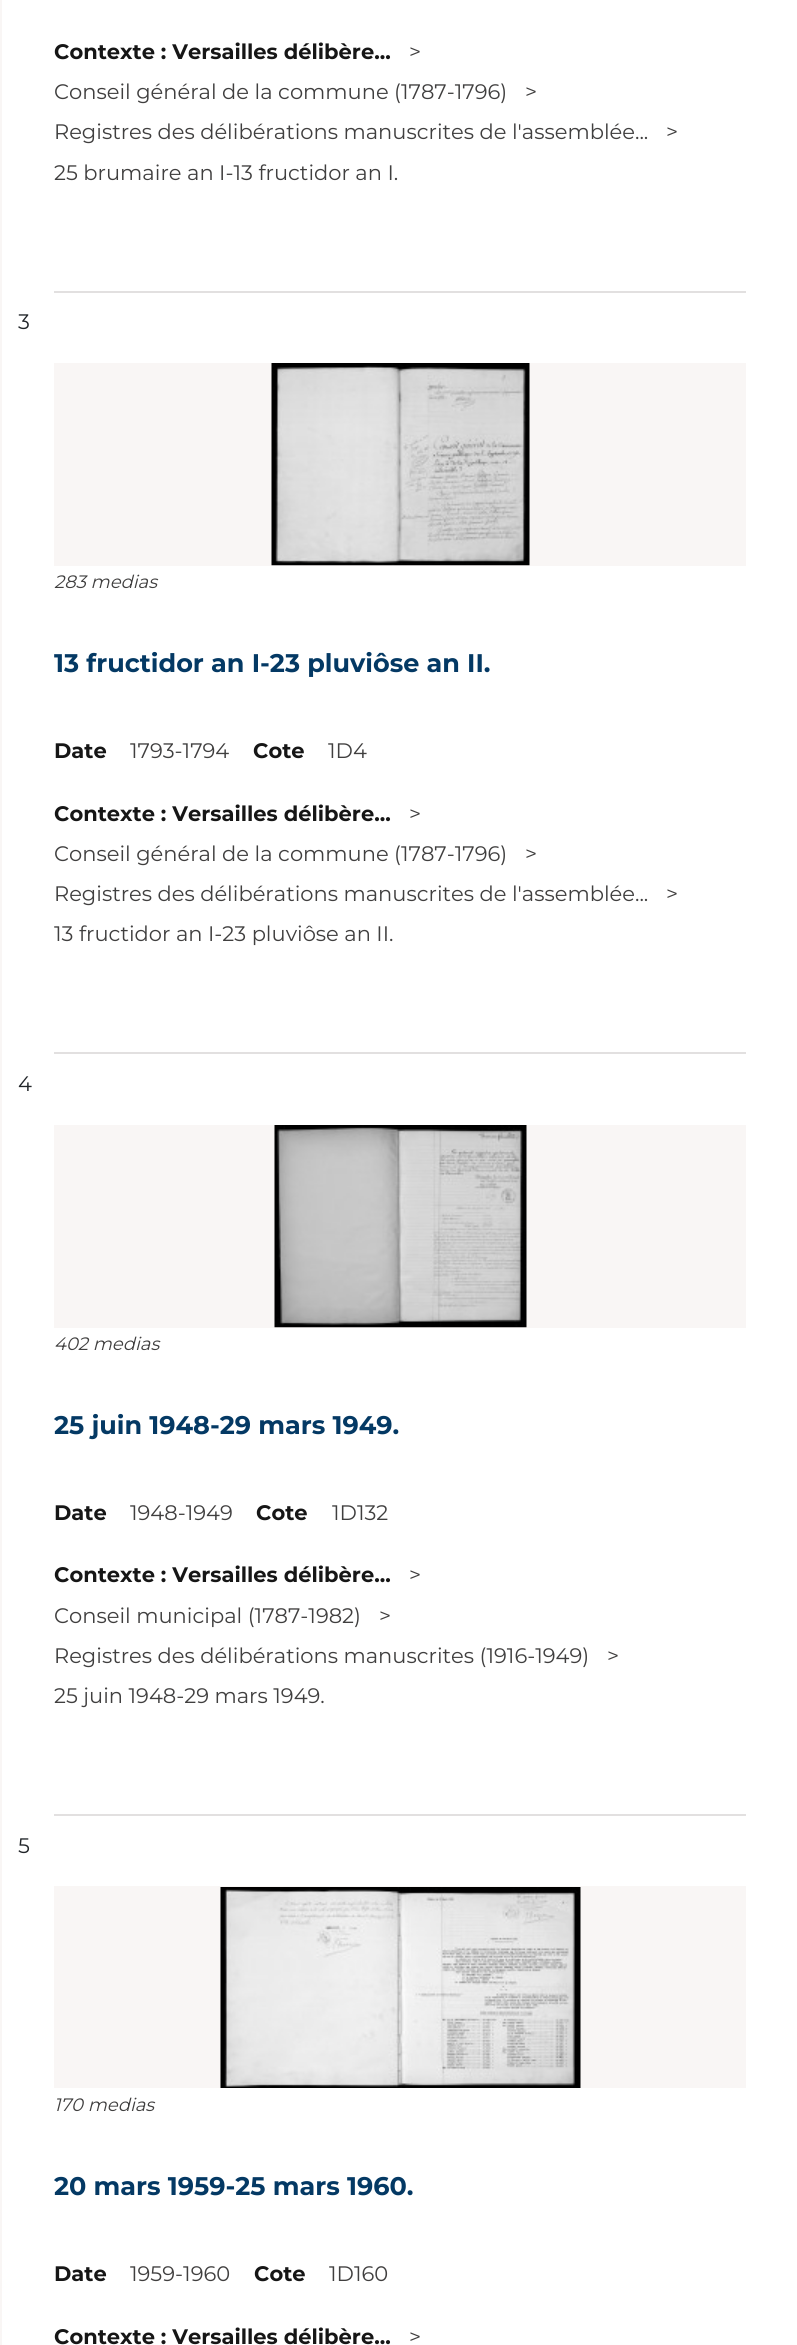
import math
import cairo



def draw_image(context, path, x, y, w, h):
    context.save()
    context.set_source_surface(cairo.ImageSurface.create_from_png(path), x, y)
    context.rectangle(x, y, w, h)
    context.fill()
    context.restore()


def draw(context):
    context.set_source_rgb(1, 1, 1)
    context.paint()
    context.set_source_rgb(249 / 255, 246 / 255, 245 / 255)
    context.rectangle(0, 0, 2, 2345)
    context.fill()
    context.set_source_rgb(226 / 255, 224 / 255, 224 / 255)
    context.rectangle(54, 291, 692, 2)
    context.fill()
    context.rectangle(54, 1052, 692, 2)
    context.fill()
    context.set_source_rgb(249 / 255, 246 / 255, 245 / 255)
    context.rectangle(54, 363, 692, 203)
    context.fill()
    draw_image(context, "images/1.png", 271, 363, 259, 203)
    context.set_source_rgb(226 / 255, 224 / 255, 224 / 255)
    context.rectangle(54, 1814, 692, 2)
    context.fill()
    context.set_source_rgb(249 / 255, 246 / 255, 245 / 255)
    context.rectangle(54, 1125, 692, 203)
    context.fill()
    draw_image(context, "images/2.png", 274, 1125, 253, 203)
    context.rectangle(54, 1886, 692, 202)
    context.fill()
    draw_image(context, "images/3.png", 220, 1887, 361, 201)
    context.select_font_face("Montserrat", cairo.FontSlant.NORMAL, cairo.FontWeight.BOLD)
    context.set_font_size(21)
    context.set_source_rgb(22 / 255, 22 / 255, 22 / 255)
    context.move_to(54, 59)
    context.show_text("Contexte : Versailles délibère...")
    context.select_font_face("Montserrat")
    context.set_source_rgb(64 / 255, 63 / 255, 63 / 255)
    context.move_to(409, 59)
    context.show_text(">")
    context.move_to(54, 99)
    context.show_text("Conseil général de la commune (1787-1796)")
    context.move_to(525, 99)
    context.show_text(">")
    context.move_to(54, 139)
    context.show_text("Registres des délibérations manuscrites de l'assemblée...")
    context.move_to(666, 139)
    context.show_text(">")
    context.move_to(54, 180)
    context.show_text("25 brumaire an I-13 fructidor an I.")
    context.set_source_rgb(33 / 255, 37 / 255, 41 / 255)
    context.move_to(18, 329)
    context.show_text("3")
    context.select_font_face("Montserrat", cairo.FontSlant.ITALIC)
    context.set_font_size(18)
    context.set_source_rgb(64 / 255, 63 / 255, 63 / 255)
    context.move_to(54, 588)
    context.show_text("283 medias")
    context.select_font_face("Montserrat", cairo.FontSlant.NORMAL, cairo.FontWeight.BOLD)
    context.set_font_size(25.5)
    context.set_source_rgb(4 / 255, 57 / 255, 100 / 255)
    context.move_to(54, 672)
    context.show_text("13 fructidor an I-23 pluviôse an II.")
    context.set_font_size(21)
    context.set_source_rgb(22 / 255, 22 / 255, 22 / 255)
    context.move_to(54, 758)
    context.show_text("Date")
    context.select_font_face("Montserrat")
    context.set_source_rgb(64 / 255, 63 / 255, 63 / 255)
    context.move_to(130, 758)
    context.show_text("1793-1794")
    context.select_font_face("Montserrat", cairo.FontSlant.NORMAL, cairo.FontWeight.BOLD)
    context.set_source_rgb(22 / 255, 22 / 255, 22 / 255)
    context.move_to(253, 758)
    context.show_text("Cote")
    context.select_font_face("Montserrat")
    context.set_source_rgb(64 / 255, 63 / 255, 63 / 255)
    context.move_to(328, 758)
    context.show_text("1D4")
    context.select_font_face("Montserrat", cairo.FontSlant.NORMAL, cairo.FontWeight.BOLD)
    context.set_source_rgb(22 / 255, 22 / 255, 22 / 255)
    context.move_to(54, 821)
    context.show_text("Contexte : Versailles délibère...")
    context.select_font_face("Montserrat")
    context.set_source_rgb(64 / 255, 63 / 255, 63 / 255)
    context.move_to(409, 821)
    context.show_text(">")
    context.move_to(54, 861)
    context.show_text("Conseil général de la commune (1787-1796)")
    context.move_to(525, 861)
    context.show_text(">")
    context.move_to(54, 901)
    context.show_text("Registres des délibérations manuscrites de l'assemblée...")
    context.move_to(666, 901)
    context.show_text(">")
    context.move_to(54, 941)
    context.show_text("13 fructidor an I-23 pluviôse an II.")
    context.set_source_rgb(33 / 255, 37 / 255, 41 / 255)
    context.move_to(18, 1091)
    context.show_text("4")
    context.select_font_face("Montserrat", cairo.FontSlant.ITALIC)
    context.set_font_size(18)
    context.set_source_rgb(64 / 255, 63 / 255, 63 / 255)
    context.move_to(54, 1350)
    context.show_text("402 medias")
    context.select_font_face("Montserrat", cairo.FontSlant.NORMAL, cairo.FontWeight.BOLD)
    context.set_font_size(25.5)
    context.set_source_rgb(4 / 255, 57 / 255, 100 / 255)
    context.move_to(54, 1434)
    context.show_text("25 juin 1948-29 mars 1949.")
    context.set_font_size(21)
    context.set_source_rgb(22 / 255, 22 / 255, 22 / 255)
    context.move_to(54, 1520)
    context.show_text("Date")
    context.select_font_face("Montserrat")
    context.set_source_rgb(64 / 255, 63 / 255, 63 / 255)
    context.move_to(130, 1520)
    context.show_text("1948-1949")
    context.select_font_face("Montserrat", cairo.FontSlant.NORMAL, cairo.FontWeight.BOLD)
    context.set_source_rgb(22 / 255, 22 / 255, 22 / 255)
    context.move_to(256, 1520)
    context.show_text("Cote")
    context.select_font_face("Montserrat")
    context.set_source_rgb(64 / 255, 63 / 255, 63 / 255)
    context.move_to(332, 1520)
    context.show_text("1D132")
    context.select_font_face("Montserrat", cairo.FontSlant.NORMAL, cairo.FontWeight.BOLD)
    context.set_source_rgb(22 / 255, 22 / 255, 22 / 255)
    context.move_to(54, 1582)
    context.show_text("Contexte : Versailles délibère...")
    context.select_font_face("Montserrat")
    context.set_source_rgb(64 / 255, 63 / 255, 63 / 255)
    context.move_to(409, 1582)
    context.show_text(">")
    context.move_to(54, 1623)
    context.show_text("Conseil municipal (1787-1982)")
    context.move_to(379, 1623)
    context.show_text(">")
    context.move_to(54, 1663)
    context.show_text("Registres des délibérations manuscrites (1916-1949)")
    context.move_to(607, 1663)
    context.show_text(">")
    context.move_to(54, 1703)
    context.show_text("25 juin 1948-29 mars 1949.")
    context.set_source_rgb(33 / 255, 37 / 255, 41 / 255)
    context.move_to(18, 1853)
    context.show_text("5")
    context.select_font_face("Montserrat", cairo.FontSlant.ITALIC)
    context.set_font_size(18)
    context.set_source_rgb(64 / 255, 63 / 255, 63 / 255)
    context.move_to(54, 2111)
    context.show_text("170 medias")
    context.select_font_face("Montserrat", cairo.FontSlant.NORMAL, cairo.FontWeight.BOLD)
    context.set_font_size(25.5)
    context.set_source_rgb(4 / 255, 57 / 255, 100 / 255)
    context.move_to(54, 2195)
    context.show_text("20 mars 1959-25 mars 1960.")
    context.set_font_size(21)
    context.set_source_rgb(22 / 255, 22 / 255, 22 / 255)
    context.move_to(54, 2281)
    context.show_text("Date")
    context.select_font_face("Montserrat")
    context.set_source_rgb(64 / 255, 63 / 255, 63 / 255)
    context.move_to(130, 2281)
    context.show_text("1959-1960")
    context.select_font_face("Montserrat", cairo.FontSlant.NORMAL, cairo.FontWeight.BOLD)
    context.set_source_rgb(22 / 255, 22 / 255, 22 / 255)
    context.move_to(254, 2281)
    context.show_text("Cote")
    context.select_font_face("Montserrat")
    context.set_source_rgb(64 / 255, 63 / 255, 63 / 255)
    context.move_to(329, 2281)
    context.show_text("1D160")
    context.select_font_face("Montserrat", cairo.FontSlant.NORMAL, cairo.FontWeight.BOLD)
    context.set_source_rgb(22 / 255, 22 / 255, 22 / 255)
    context.move_to(54, 2344)
    context.show_text("Contexte : Versailles délibère...")
    context.select_font_face("Montserrat")
    context.set_source_rgb(64 / 255, 63 / 255, 63 / 255)
    context.move_to(409, 2344)
    context.show_text(">")


surface = cairo.ImageSurface(cairo.Format.RGB24, 797, 2345)
context = cairo.Context(surface)
options = cairo.FontOptions()
options.set_hint_metrics(cairo.HintMetrics.OFF)
options.set_hint_style(cairo.HintStyle.NONE)
context.set_font_options(options)
context.set_miter_limit(4)
draw(context)
surface.write_to_png("out.png")
